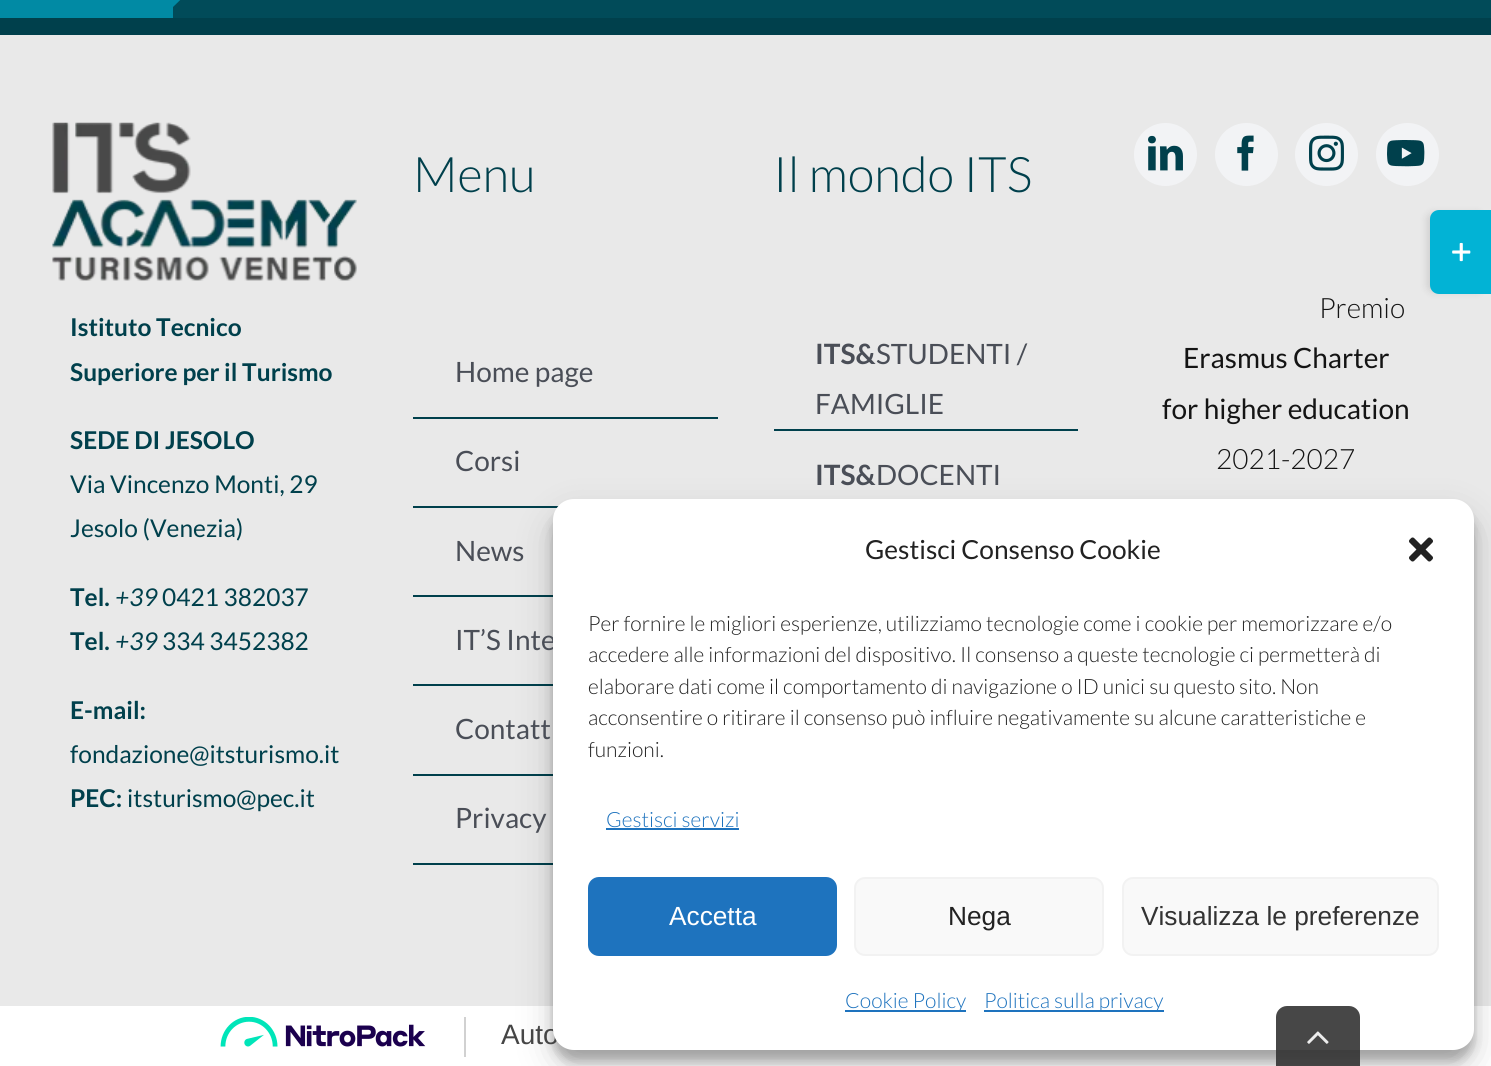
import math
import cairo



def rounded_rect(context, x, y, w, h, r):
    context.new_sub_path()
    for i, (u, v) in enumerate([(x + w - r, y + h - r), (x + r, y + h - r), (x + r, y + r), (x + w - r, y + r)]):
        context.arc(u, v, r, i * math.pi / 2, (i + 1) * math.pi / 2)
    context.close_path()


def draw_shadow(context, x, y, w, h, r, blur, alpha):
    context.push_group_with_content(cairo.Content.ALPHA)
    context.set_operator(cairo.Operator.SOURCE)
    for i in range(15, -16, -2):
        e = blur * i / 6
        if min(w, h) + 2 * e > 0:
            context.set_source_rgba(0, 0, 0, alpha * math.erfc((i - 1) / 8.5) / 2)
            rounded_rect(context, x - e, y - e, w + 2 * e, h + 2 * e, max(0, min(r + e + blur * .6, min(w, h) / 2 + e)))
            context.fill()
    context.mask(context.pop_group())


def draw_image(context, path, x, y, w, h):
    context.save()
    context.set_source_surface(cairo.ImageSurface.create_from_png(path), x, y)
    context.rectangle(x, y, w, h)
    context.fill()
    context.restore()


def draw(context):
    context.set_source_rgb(1, 1, 1)
    context.paint()
    context.set_source_rgb(0, 64 / 255, 76 / 255)
    context.rectangle(0, 18, 1491, 17)
    context.fill()
    context.set_source_rgb(1 / 255, 75 / 255, 89 / 255)
    context.rectangle(173, 0, 1318, 18)
    context.fill()
    context.set_source_rgb(1 / 255, 138 / 255, 164 / 255)
    context.rectangle(0, 0, 173, 18)
    context.fill()
    context.new_path()
    context.move_to(173, 7)
    context.line_to(173, -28)
    context.line_to(191, -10.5)
    context.close_path()
    context.fill()
    context.set_source_rgb(233 / 255, 233 / 255, 233 / 255)
    context.rectangle(0, 35, 1491, 971)
    context.fill()
    draw_image(context, "images/1.png", 52, 122, 305, 159)
    context.set_source_rgb(0, 64 / 255, 76 / 255)
    context.rectangle(413, 417, 305, 2)
    context.fill()
    context.rectangle(413, 506, 146, 2)
    context.fill()
    context.rectangle(413, 595, 140, 2)
    context.fill()
    context.rectangle(413, 684, 140, 2)
    context.fill()
    context.rectangle(413, 774, 140, 2)
    context.fill()
    context.rectangle(413, 863, 140, 2)
    context.fill()
    context.rectangle(774, 429, 304, 2)
    context.fill()
    context.set_source_rgb(242 / 255, 243 / 255, 245 / 255)
    context.arc(1165.5, 154.5, 31.5, 0, 2 * math.pi)
    context.fill()
    draw_image(context, "images/2.png", 1148, 135, 35, 36)
    context.arc(1246.5, 154.5, 31.5, 0, 2 * math.pi)
    context.fill()
    draw_image(context, "images/3.png", 1237, 135, 17, 36)
    context.arc(1326.5, 154.5, 31.5, 0, 2 * math.pi)
    context.fill()
    draw_image(context, "images/4.png", 1309, 135, 35, 36)
    context.arc(1407.5, 154.5, 31.5, 0, 2 * math.pi)
    context.fill()
    draw_image(context, "images/5.png", 1387, 140, 38, 27)
    context.set_source_rgb(0, 0, 0)
    draw_shadow(context, 1428, 214, 54, 77, 5, 4.5, 0.14)
    context.set_source_rgb(2 / 255, 179 / 255, 213 / 255)
    context.new_path()
    context.move_to(1439, 210)
    context.line_to(1491, 210)
    context.line_to(1491, 294)
    context.line_to(1439, 294)
    context.curve_to(1434, 294, 1430, 290, 1430, 285)
    context.line_to(1430, 219)
    context.curve_to(1430, 214, 1434, 210, 1439, 210)
    context.close_path()
    context.fill()
    draw_image(context, "images/6.png", 1452, 242, 19, 20)
    context.set_source_rgb(0, 0, 0)
    draw_shadow(context, 553, 509, 921, 552, 21, 5, 0.23)
    draw_shadow(context, 553, 516, 921, 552, 21, 17.5, 0.19)
    context.set_source_rgb(209 / 255, 209 / 255, 209 / 255)
    context.rectangle(464, 1017, 2, 40)
    context.fill()
    draw_image(context, "images/8.png", 220, 1017, 206, 30)
    context.select_font_face("Lato", cairo.FontSlant.NORMAL, cairo.FontWeight.BOLD)
    context.set_font_size(24.5)
    context.set_source_rgb(0, 64 / 255, 76 / 255)
    context.move_to(70, 336)
    context.show_text("Istituto Tecnico")
    context.move_to(70, 381)
    context.show_text("Superiore per il Turismo")
    context.move_to(70, 449)
    context.show_text("SEDE DI JESOLO")
    context.select_font_face("Lato")
    context.move_to(70, 493)
    context.show_text("Via Vincenzo Monti, 29")
    context.move_to(70, 537)
    context.show_text("Jesolo (Venezia)")
    context.select_font_face("Lato", cairo.FontSlant.NORMAL, cairo.FontWeight.BOLD)
    context.move_to(70, 606)
    context.show_text("Tel.")
    context.select_font_face("Lato", cairo.FontSlant.ITALIC)
    context.move_to(115, 606)
    context.show_text("+39")
    context.select_font_face("Lato")
    context.move_to(162, 606)
    context.show_text("0421 382037")
    context.select_font_face("Lato", cairo.FontSlant.NORMAL, cairo.FontWeight.BOLD)
    context.move_to(70, 650)
    context.show_text("Tel.")
    context.select_font_face("Lato", cairo.FontSlant.ITALIC)
    context.move_to(115, 650)
    context.show_text("+39")
    context.select_font_face("Lato")
    context.move_to(162, 650)
    context.show_text("334 3452382")
    context.select_font_face("Lato", cairo.FontSlant.NORMAL, cairo.FontWeight.BOLD)
    context.move_to(70, 719)
    context.show_text("E-mail:")
    context.select_font_face("Lato")
    context.move_to(70, 763)
    context.show_text("fondazione@itsturismo.it")
    context.select_font_face("Lato", cairo.FontSlant.NORMAL, cairo.FontWeight.BOLD)
    context.move_to(70, 807)
    context.show_text("PEC:")
    context.select_font_face("Lato")
    context.move_to(127, 807)
    context.show_text("itsturismo@pec.it")
    context.select_font_face("Lato Light")
    context.set_font_size(49)
    context.move_to(413, 192)
    context.show_text("Menu")
    context.select_font_face("Lato")
    context.set_font_size(28)
    context.set_source_rgb(74 / 255, 78 / 255, 87 / 255)
    context.move_to(455, 382)
    context.show_text("Home page")
    context.move_to(455, 471)
    context.show_text("Corsi")
    context.move_to(455, 561)
    context.show_text("News")
    context.move_to(455, 650)
    context.show_text("IT’S Inte")
    context.move_to(455, 739)
    context.show_text("Contatt")
    context.move_to(455, 828)
    context.show_text("Privacy")
    context.select_font_face("Lato Light")
    context.set_font_size(49)
    context.set_source_rgb(0, 64 / 255, 76 / 255)
    context.move_to(773, 192)
    context.show_text("Il mondo ITS")
    context.select_font_face("Lato", cairo.FontSlant.NORMAL, cairo.FontWeight.BOLD)
    context.set_font_size(28)
    context.set_source_rgb(74 / 255, 78 / 255, 87 / 255)
    context.move_to(815, 364)
    context.show_text("ITS&")
    context.select_font_face("Lato")
    context.move_to(876, 364)
    context.show_text("STUDENTI /")
    context.move_to(815, 414)
    context.show_text("FAMIGLIE")
    context.select_font_face("Lato", cairo.FontSlant.NORMAL, cairo.FontWeight.BOLD)
    context.move_to(815, 485)
    context.show_text("ITS&")
    context.select_font_face("Lato")
    context.move_to(876, 485)
    context.show_text("DOCENTI")
    context.select_font_face("Lato Light")
    context.set_source_rgb(20 / 255, 20 / 255, 20 / 255)
    context.move_to(1319, 318)
    context.show_text("Premio")
    context.select_font_face("Lato")
    context.move_to(1183, 368)
    context.show_text("Erasmus Charter")
    context.move_to(1162, 419)
    context.show_text("for higher education")
    context.select_font_face("Lato Light")
    context.move_to(1216, 469)
    context.show_text("2021-2027")
    context.select_font_face("Liberation Sans")
    context.set_source_rgb(69 / 255, 69 / 255, 69 / 255)
    context.move_to(501, 1044)
    context.show_text("Auto")
    context.set_source_rgb(1, 1, 1)
    rounded_rect(context, 553, 499, 921, 551, 21)
    context.fill()
    context.select_font_face("Lato Light")
    context.set_font_size(21)
    context.set_source_rgb(34 / 255, 34 / 255, 34 / 255)
    context.move_to(588, 757)
    context.show_text("funzioni.")
    context.move_to(588, 725)
    context.show_text("acconsentire o ritirare il consenso può influire negativamente su alcune caratteristiche e")
    context.move_to(588, 694)
    context.show_text("elaborare dati come il comportamento di navigazione o ID unici su questo sito. Non")
    context.move_to(588, 662)
    context.show_text("accedere alle informazioni del dispositivo. Il consenso a queste tecnologie ci permetterà di")
    context.move_to(588, 631)
    context.show_text("Per fornire le migliori esperienze, utilizziamo tecnologie come i cookie per memorizzare e/o")
    draw_image(context, "images/7.png", 1409, 537, 24, 25)
    context.set_source_rgb(30 / 255, 115 / 255, 190 / 255)
    context.rectangle(984, 1010, 180, 2)
    context.fill()
    context.move_to(984, 1008)
    context.show_text("Politica sulla privacy")
    context.rectangle(845, 1010, 121, 2)
    context.fill()
    context.move_to(845, 1008)
    context.show_text("Cookie Policy")
    context.set_source_rgb(249 / 255, 249 / 255, 249 / 255)
    rounded_rect(context, 1123, 878, 315, 77, 10)
    context.fill_preserve()
    context.set_source_rgb(242 / 255, 242 / 255, 242 / 255)
    context.stroke()
    context.select_font_face("Liberation Sans")
    context.set_font_size(26.25)
    context.set_source_rgb(51 / 255, 51 / 255, 51 / 255)
    context.move_to(1141, 925)
    context.show_text("Visualizza le preferenze")
    context.set_source_rgb(249 / 255, 249 / 255, 249 / 255)
    rounded_rect(context, 855, 878, 248, 77, 10)
    context.fill_preserve()
    context.set_source_rgb(242 / 255, 242 / 255, 242 / 255)
    context.stroke()
    context.set_source_rgb(34 / 255, 34 / 255, 34 / 255)
    context.move_to(948, 925)
    context.show_text("Nega")
    context.set_source_rgb(30 / 255, 115 / 255, 190 / 255)
    rounded_rect(context, 589, 878, 247, 77, 10)
    context.fill_preserve()
    context.stroke()
    context.set_source_rgb(1, 1, 1)
    context.move_to(669, 925)
    context.show_text("Accetta")
    context.select_font_face("Lato Light")
    context.set_font_size(21)
    context.set_source_rgb(30 / 255, 115 / 255, 190 / 255)
    context.move_to(606, 827)
    context.show_text("Gestisci servizi")
    context.rectangle(606, 828, 133, 2)
    context.fill()
    context.select_font_face("Lato")
    context.set_font_size(26.25)
    context.set_source_rgb(34 / 255, 34 / 255, 34 / 255)
    context.move_to(865, 559)
    context.show_text("Gestisci Consenso Cookie")
    context.set_source_rgba(51 / 255, 51 / 255, 51 / 255, 0.9)
    context.new_path()
    context.move_to(1287, 1006)
    context.line_to(1349, 1006)
    context.curve_to(1355, 1006, 1360, 1011, 1360, 1017)
    context.line_to(1360, 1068)
    context.line_to(1276, 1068)
    context.line_to(1276, 1017)
    context.curve_to(1276, 1011, 1281, 1006, 1287, 1006)
    context.close_path()
    context.fill()
    draw_image(context, "images/9.png", 1307, 1031, 22, 13)


surface = cairo.ImageSurface(cairo.Format.RGB24, 1491, 1066)
context = cairo.Context(surface)
options = cairo.FontOptions()
options.set_hint_metrics(cairo.HintMetrics.OFF)
options.set_hint_style(cairo.HintStyle.NONE)
context.set_font_options(options)
context.set_miter_limit(4)
draw(context)
surface.write_to_png("out.png")
